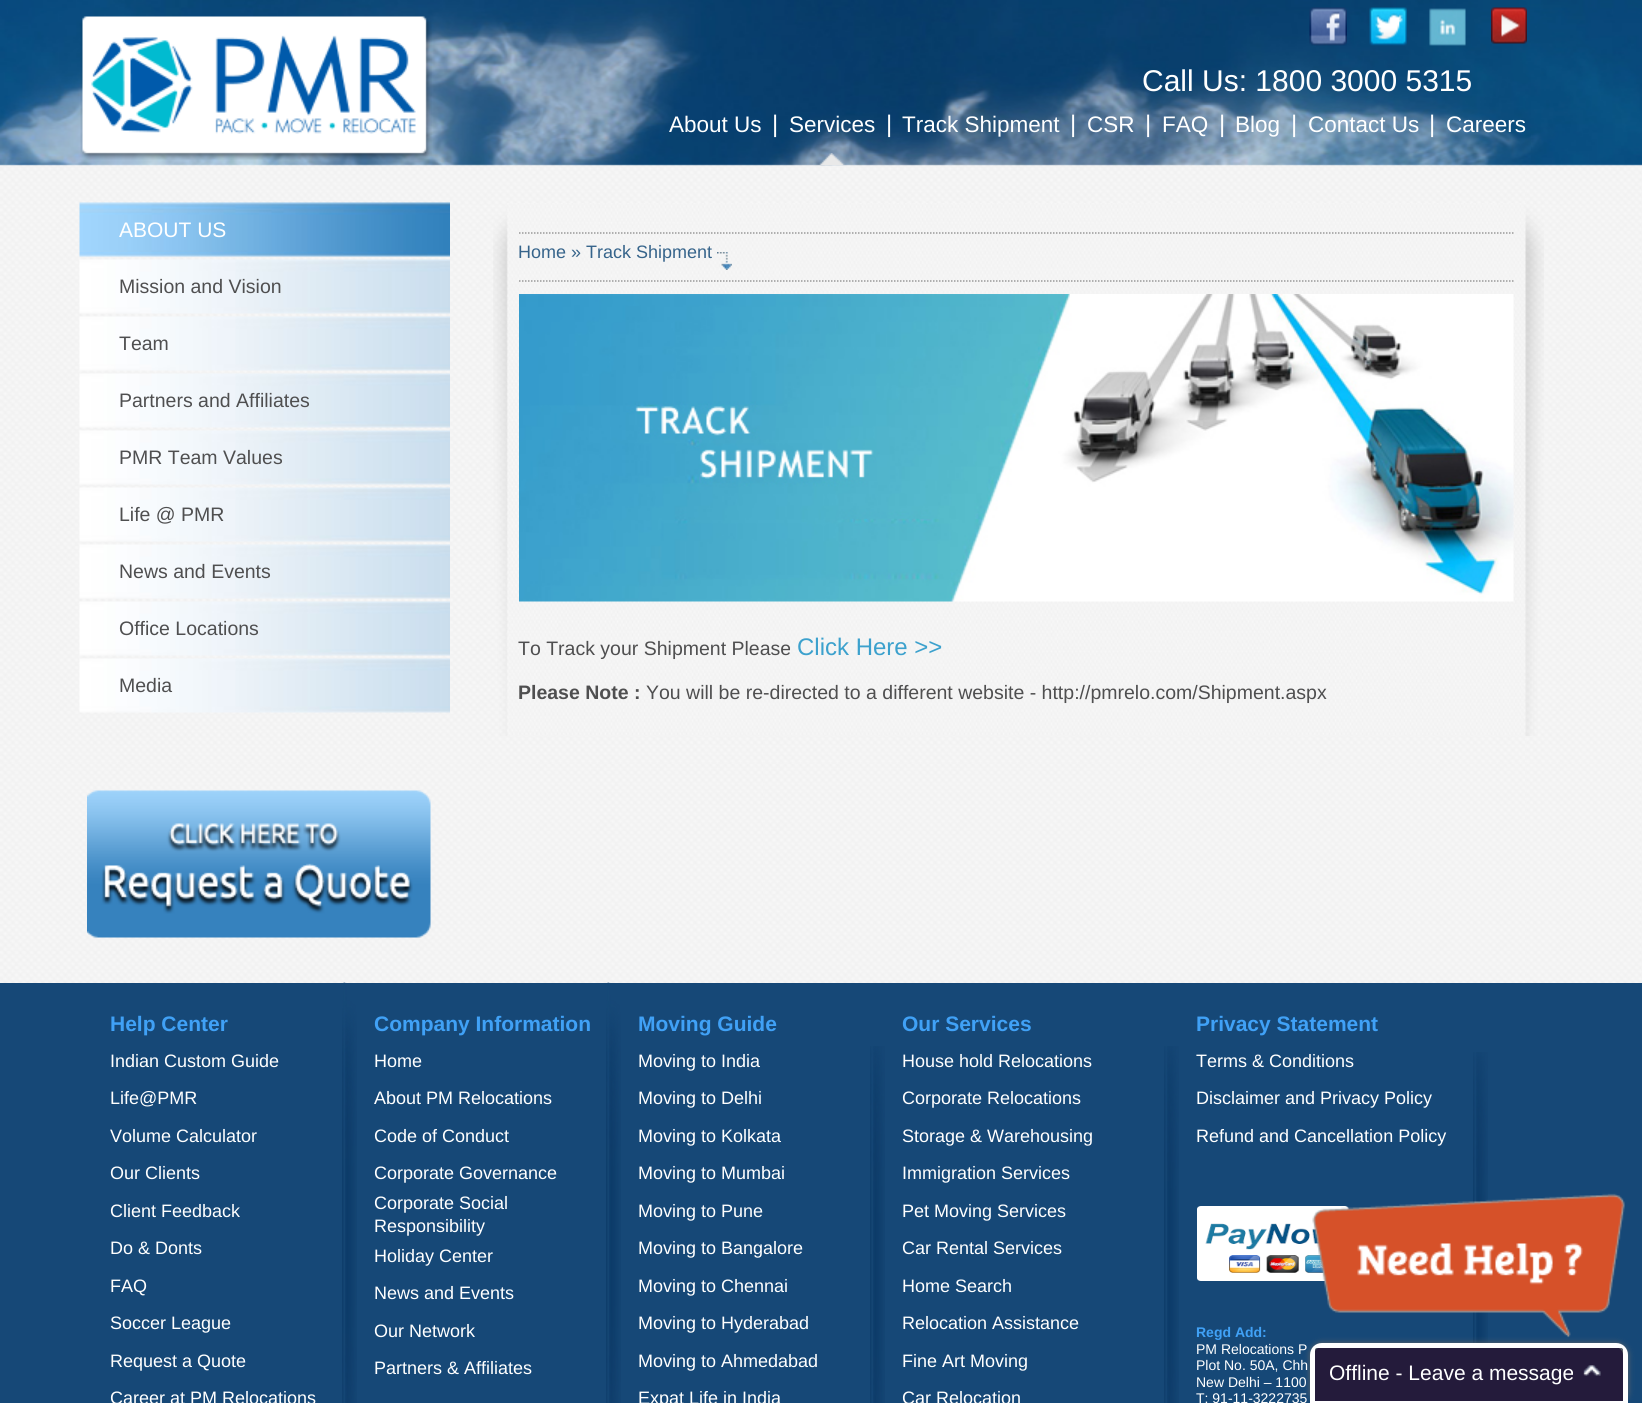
import math
import cairo



def rounded_rect(context, x, y, w, h, r):
    context.new_sub_path()
    for i, (u, v) in enumerate([(x + w - r, y + h - r), (x + r, y + h - r), (x + r, y + r), (x + w - r, y + r)]):
        context.arc(u, v, r, i * math.pi / 2, (i + 1) * math.pi / 2)
    context.close_path()


def draw_shadow(context, x, y, w, h, r, blur, alpha):
    context.push_group_with_content(cairo.Content.ALPHA)
    context.set_operator(cairo.Operator.SOURCE)
    for i in range(15, -16, -2):
        e = blur * i / 6
        if min(w, h) + 2 * e > 0:
            context.set_source_rgba(0, 0, 0, alpha * math.erfc((i - 1) / 8.5) / 2)
            rounded_rect(context, x - e, y - e, w + 2 * e, h + 2 * e, max(0, min(r + e + blur * .6, min(w, h) / 2 + e)))
            context.fill()
    context.mask(context.pop_group())


def draw_image(context, path, x, y, w, h):
    context.save()
    context.set_source_surface(cairo.ImageSurface.create_from_png(path), x, y)
    context.rectangle(x, y, w, h)
    context.fill()
    context.restore()


def draw(context):
    context.set_source_rgb(1, 1, 1)
    context.paint()
    draw_image(context, "images/27.png", 0, 164, 1642, 819)
    draw_image(context, "images/1.png", 0, 0, 1642, 166)
    draw_image(context, "images/2.png", 80, 16, 352, 144)
    draw_image(context, "images/3.png", 1309, 7, 38, 39)
    draw_image(context, "images/4.png", 1369, 7, 38, 39)
    draw_image(context, "images/5.png", 1429, 8, 37, 38)
    draw_image(context, "images/6.png", 1491, 7, 36, 37)
    draw_image(context, "images/7.png", 819, 153, 26, 12)
    draw_image(context, "images/8.png", 79, 202, 371, 55)
    draw_image(context, "images/9.png", 79, 259, 371, 55)
    draw_image(context, "images/10.png", 79, 316, 371, 55)
    draw_image(context, "images/11.png", 79, 373, 371, 55)
    draw_image(context, "images/12.png", 79, 430, 371, 55)
    draw_image(context, "images/13.png", 79, 487, 371, 55)
    draw_image(context, "images/14.png", 79, 544, 371, 55)
    draw_image(context, "images/15.png", 79, 601, 371, 55)
    draw_image(context, "images/16.png", 79, 658, 371, 55)
    draw_image(context, "images/17.png", 87, 790, 344, 148)
    draw_image(context, "images/18.png", 493, 203, 1051, 533)
    context.new_path()
    context.move_to(519, 233)
    context.line_to(1513.5, 233)
    context.set_source_rgb(153 / 255, 153 / 255, 153 / 255)
    context.set_line_width(1.5)
    context.set_dash([1.5, 1.5])
    context.stroke()
    context.new_path()
    context.move_to(519, 281)
    context.line_to(1513.5, 281)
    context.stroke()
    draw_image(context, "images/19.png", 717, 252, 15, 18)
    draw_image(context, "images/20.png", 519, 294, 995, 308)
    context.set_source_rgb(22 / 255, 72 / 255, 119 / 255)
    context.rectangle(0, 983, 1642, 420)
    context.fill()
    draw_image(context, "images/21.png", 342, 982, 15, 421)
    draw_image(context, "images/22.png", 606, 982, 15, 421)
    draw_image(context, "images/23.png", 870, 1046, 15, 357)
    draw_image(context, "images/24.png", 1164, 1046, 15, 357)
    draw_image(context, "images/25.png", 1473, 1052, 15, 291)
    draw_image(context, "images/26.png", 1197, 1206, 152, 75)
    draw_image(context, "images/28.png", 1312, 1193, 313, 145)
    context.set_source_rgb(102 / 255, 102 / 255, 102 / 255)
    draw_shadow(context, 1310, 1343, 318, 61, 12, 3, 1)
    context.set_source_rgb(36 / 255, 27 / 255, 59 / 255)
    context.new_path()
    context.move_to(1322, 1347)
    context.line_to(1615, 1347)
    context.curve_to(1619.5, 1347, 1623, 1350.5, 1623, 1355)
    context.line_to(1623, 1401)
    context.line_to(1314, 1401)
    context.line_to(1314, 1355)
    context.curve_to(1314, 1350.5, 1317.5, 1347, 1322, 1347)
    context.close_path()
    context.fill()
    draw_image(context, "images/29.png", 1583, 1365, 18, 11)
    context.new_path()
    context.move_to(1322, 1344.5)
    context.line_to(1616, 1344.5)
    context.curve_to(1622, 1344.5, 1626.5, 1349, 1626.5, 1355)
    context.line_to(1626.5, 1402.5)
    context.line_to(1311.5, 1402.5)
    context.line_to(1311.5, 1355)
    context.curve_to(1311.5, 1349, 1316, 1344.5, 1322, 1344.5)
    context.close_path()
    context.set_source_rgb(1, 1, 1)
    context.set_line_width(3)
    context.set_dash([])
    context.stroke()
    context.rectangle(1316, 1346, 306, 2)
    context.fill()
    context.rectangle(1623, 1349, 2, 54)
    context.fill()
    context.rectangle(1313, 1349, 2, 54)
    context.fill()
    context.select_font_face("Liberation Sans")
    context.set_font_size(30)
    context.move_to(1142, 91)
    context.show_text("Call Us: 1800 3000 5315")
    context.set_font_size(22.5)
    context.move_to(669, 132)
    context.show_text("About Us")
    context.set_font_size(24)
    context.move_to(772, 132)
    context.show_text("|")
    context.set_font_size(22.5)
    context.move_to(789, 132)
    context.show_text("Services")
    context.set_font_size(24)
    context.move_to(886, 132)
    context.show_text("|")
    context.set_font_size(22.5)
    context.move_to(902, 132)
    context.show_text("Track Shipment")
    context.set_font_size(24)
    context.move_to(1070, 132)
    context.show_text("|")
    context.set_font_size(22.5)
    context.move_to(1087, 132)
    context.show_text("CSR")
    context.set_font_size(24)
    context.move_to(1145, 132)
    context.show_text("|")
    context.set_font_size(22.5)
    context.move_to(1162, 132)
    context.show_text("FAQ")
    context.set_font_size(24)
    context.move_to(1219, 132)
    context.show_text("|")
    context.set_font_size(22.5)
    context.move_to(1235, 132)
    context.show_text("Blog")
    context.set_font_size(24)
    context.move_to(1291, 132)
    context.show_text("|")
    context.set_font_size(22.5)
    context.move_to(1308, 132)
    context.show_text("Contact Us")
    context.set_font_size(24)
    context.move_to(1429, 132)
    context.show_text("|")
    context.set_font_size(22.5)
    context.move_to(1446, 132)
    context.show_text("Careers")
    context.set_font_size(21)
    context.move_to(119, 237)
    context.show_text("ABOUT US")
    context.set_font_size(19.5)
    context.set_source_rgb(79 / 255, 79 / 255, 80 / 255)
    context.move_to(119, 293)
    context.show_text("Mission and Vision")
    context.move_to(119, 350)
    context.show_text("Team")
    context.move_to(119, 407)
    context.show_text("Partners and Affiliates")
    context.move_to(119, 464)
    context.show_text("PMR Team Values")
    context.move_to(119, 521)
    context.show_text("Life @ PMR")
    context.move_to(119, 578)
    context.show_text("News and Events")
    context.move_to(119, 635)
    context.show_text("Office Locations")
    context.move_to(119, 692)
    context.show_text("Media")
    context.set_font_size(18)
    context.set_source_rgb(54 / 255, 100 / 255, 139 / 255)
    context.move_to(518, 258)
    context.show_text("Home » Track Shipment")
    context.set_font_size(19.5)
    context.set_source_rgb(79 / 255, 79 / 255, 80 / 255)
    context.move_to(518, 655)
    context.show_text("To Track your Shipment Please")
    context.set_font_size(24)
    context.set_source_rgb(60 / 255, 161 / 255, 205 / 255)
    context.move_to(797, 655)
    context.show_text("Click Here >>")
    context.select_font_face("Liberation Sans", cairo.FontSlant.NORMAL, cairo.FontWeight.BOLD)
    context.set_font_size(19.5)
    context.set_source_rgb(79 / 255, 79 / 255, 80 / 255)
    context.move_to(518, 699)
    context.show_text("Please Note :")
    context.select_font_face("Liberation Sans")
    context.move_to(646, 699)
    context.show_text("You will be re-directed to a different website - http://pmrelo.com/Shipment.aspx")
    context.select_font_face("Liberation Sans", cairo.FontSlant.NORMAL, cairo.FontWeight.BOLD)
    context.set_font_size(21)
    context.set_source_rgb(64 / 255, 161 / 255, 246 / 255)
    context.move_to(110, 1031)
    context.show_text("Help Center")
    context.select_font_face("Liberation Sans")
    context.set_font_size(18)
    context.set_source_rgb(1, 1, 1)
    context.move_to(110, 1067)
    context.show_text("Indian Custom Guide")
    context.move_to(110, 1104)
    context.show_text("Life@PMR")
    context.move_to(110, 1142)
    context.show_text("Volume Calculator")
    context.move_to(110, 1179)
    context.show_text("Our Clients")
    context.move_to(110, 1217)
    context.show_text("Client Feedback")
    context.move_to(110, 1254)
    context.show_text("Do & Donts")
    context.move_to(110, 1292)
    context.show_text("FAQ")
    context.move_to(110, 1329)
    context.show_text("Soccer League")
    context.move_to(110, 1367)
    context.show_text("Request a Quote")
    context.move_to(110, 1404)
    context.show_text("Career at PM Relocations")
    context.select_font_face("Liberation Sans", cairo.FontSlant.NORMAL, cairo.FontWeight.BOLD)
    context.set_font_size(21)
    context.set_source_rgb(64 / 255, 161 / 255, 246 / 255)
    context.move_to(374, 1031)
    context.show_text("Company Information")
    context.select_font_face("Liberation Sans")
    context.set_font_size(18)
    context.set_source_rgb(1, 1, 1)
    context.move_to(374, 1067)
    context.show_text("Home")
    context.move_to(374, 1104)
    context.show_text("About PM Relocations")
    context.move_to(374, 1142)
    context.show_text("Code of Conduct")
    context.move_to(374, 1179)
    context.show_text("Corporate Governance")
    context.move_to(374, 1209)
    context.show_text("Corporate Social")
    context.move_to(374, 1232)
    context.show_text("Responsibility")
    context.move_to(374, 1262)
    context.show_text("Holiday Center")
    context.move_to(374, 1299)
    context.show_text("News and Events")
    context.move_to(374, 1337)
    context.show_text("Our Network")
    context.move_to(374, 1374)
    context.show_text("Partners & Affiliates")
    context.select_font_face("Liberation Sans", cairo.FontSlant.NORMAL, cairo.FontWeight.BOLD)
    context.set_font_size(21)
    context.set_source_rgb(64 / 255, 161 / 255, 246 / 255)
    context.move_to(638, 1031)
    context.show_text("Moving Guide")
    context.select_font_face("Liberation Sans")
    context.set_font_size(18)
    context.set_source_rgb(1, 1, 1)
    context.move_to(638, 1067)
    context.show_text("Moving to India")
    context.move_to(638, 1104)
    context.show_text("Moving to Delhi")
    context.move_to(638, 1142)
    context.show_text("Moving to Kolkata")
    context.move_to(638, 1179)
    context.show_text("Moving to Mumbai")
    context.move_to(638, 1217)
    context.show_text("Moving to Pune")
    context.move_to(638, 1254)
    context.show_text("Moving to Bangalore")
    context.move_to(638, 1292)
    context.show_text("Moving to Chennai")
    context.move_to(638, 1329)
    context.show_text("Moving to Hyderabad")
    context.move_to(638, 1367)
    context.show_text("Moving to Ahmedabad")
    context.move_to(638, 1404)
    context.show_text("Expat Life in India")
    context.select_font_face("Liberation Sans", cairo.FontSlant.NORMAL, cairo.FontWeight.BOLD)
    context.set_font_size(21)
    context.set_source_rgb(64 / 255, 161 / 255, 246 / 255)
    context.move_to(902, 1031)
    context.show_text("Our Services")
    context.select_font_face("Liberation Sans")
    context.set_font_size(18)
    context.set_source_rgb(1, 1, 1)
    context.move_to(902, 1067)
    context.show_text("House hold Relocations")
    context.move_to(902, 1104)
    context.show_text("Corporate Relocations")
    context.move_to(902, 1142)
    context.show_text("Storage & Warehousing")
    context.move_to(902, 1179)
    context.show_text("Immigration Services")
    context.move_to(902, 1217)
    context.show_text("Pet Moving Services")
    context.move_to(902, 1254)
    context.show_text("Car Rental Services")
    context.move_to(902, 1292)
    context.show_text("Home Search")
    context.move_to(902, 1329)
    context.show_text("Relocation Assistance")
    context.move_to(902, 1367)
    context.show_text("Fine Art Moving")
    context.move_to(902, 1404)
    context.show_text("Car Relocation")
    context.select_font_face("Liberation Sans", cairo.FontSlant.NORMAL, cairo.FontWeight.BOLD)
    context.set_font_size(21)
    context.set_source_rgb(64 / 255, 161 / 255, 246 / 255)
    context.move_to(1196, 1031)
    context.show_text("Privacy Statement")
    context.select_font_face("Liberation Sans")
    context.set_font_size(18)
    context.set_source_rgb(1, 1, 1)
    context.move_to(1196, 1067)
    context.show_text("Terms & Conditions")
    context.move_to(1196, 1104)
    context.show_text("Disclaimer and Privacy Policy")
    context.move_to(1196, 1142)
    context.show_text("Refund and Cancellation Policy")
    context.select_font_face("Liberation Sans", cairo.FontSlant.NORMAL, cairo.FontWeight.BOLD)
    context.set_font_size(14)
    context.set_source_rgb(64 / 255, 161 / 255, 246 / 255)
    context.move_to(1196, 1337)
    context.show_text("Regd Add:")
    context.select_font_face("Liberation Sans")
    context.set_source_rgb(1, 1, 1)
    context.move_to(1196, 1354)
    context.show_text("PM Relocations P")
    context.move_to(1196, 1370)
    context.show_text("Plot No. 50A, Chh")
    context.move_to(1196, 1387)
    context.show_text("New Delhi – 1100")
    context.move_to(1196, 1403)
    context.show_text("T: 91-11-3222735")
    context.set_font_size(21)
    context.move_to(1329, 1380)
    context.show_text("Offline - Leave a message")


surface = cairo.ImageSurface(cairo.Format.RGB24, 1642, 1403)
context = cairo.Context(surface)
options = cairo.FontOptions()
options.set_hint_metrics(cairo.HintMetrics.OFF)
options.set_hint_style(cairo.HintStyle.NONE)
context.set_font_options(options)
context.set_miter_limit(4)
draw(context)
surface.write_to_png("out.png")
